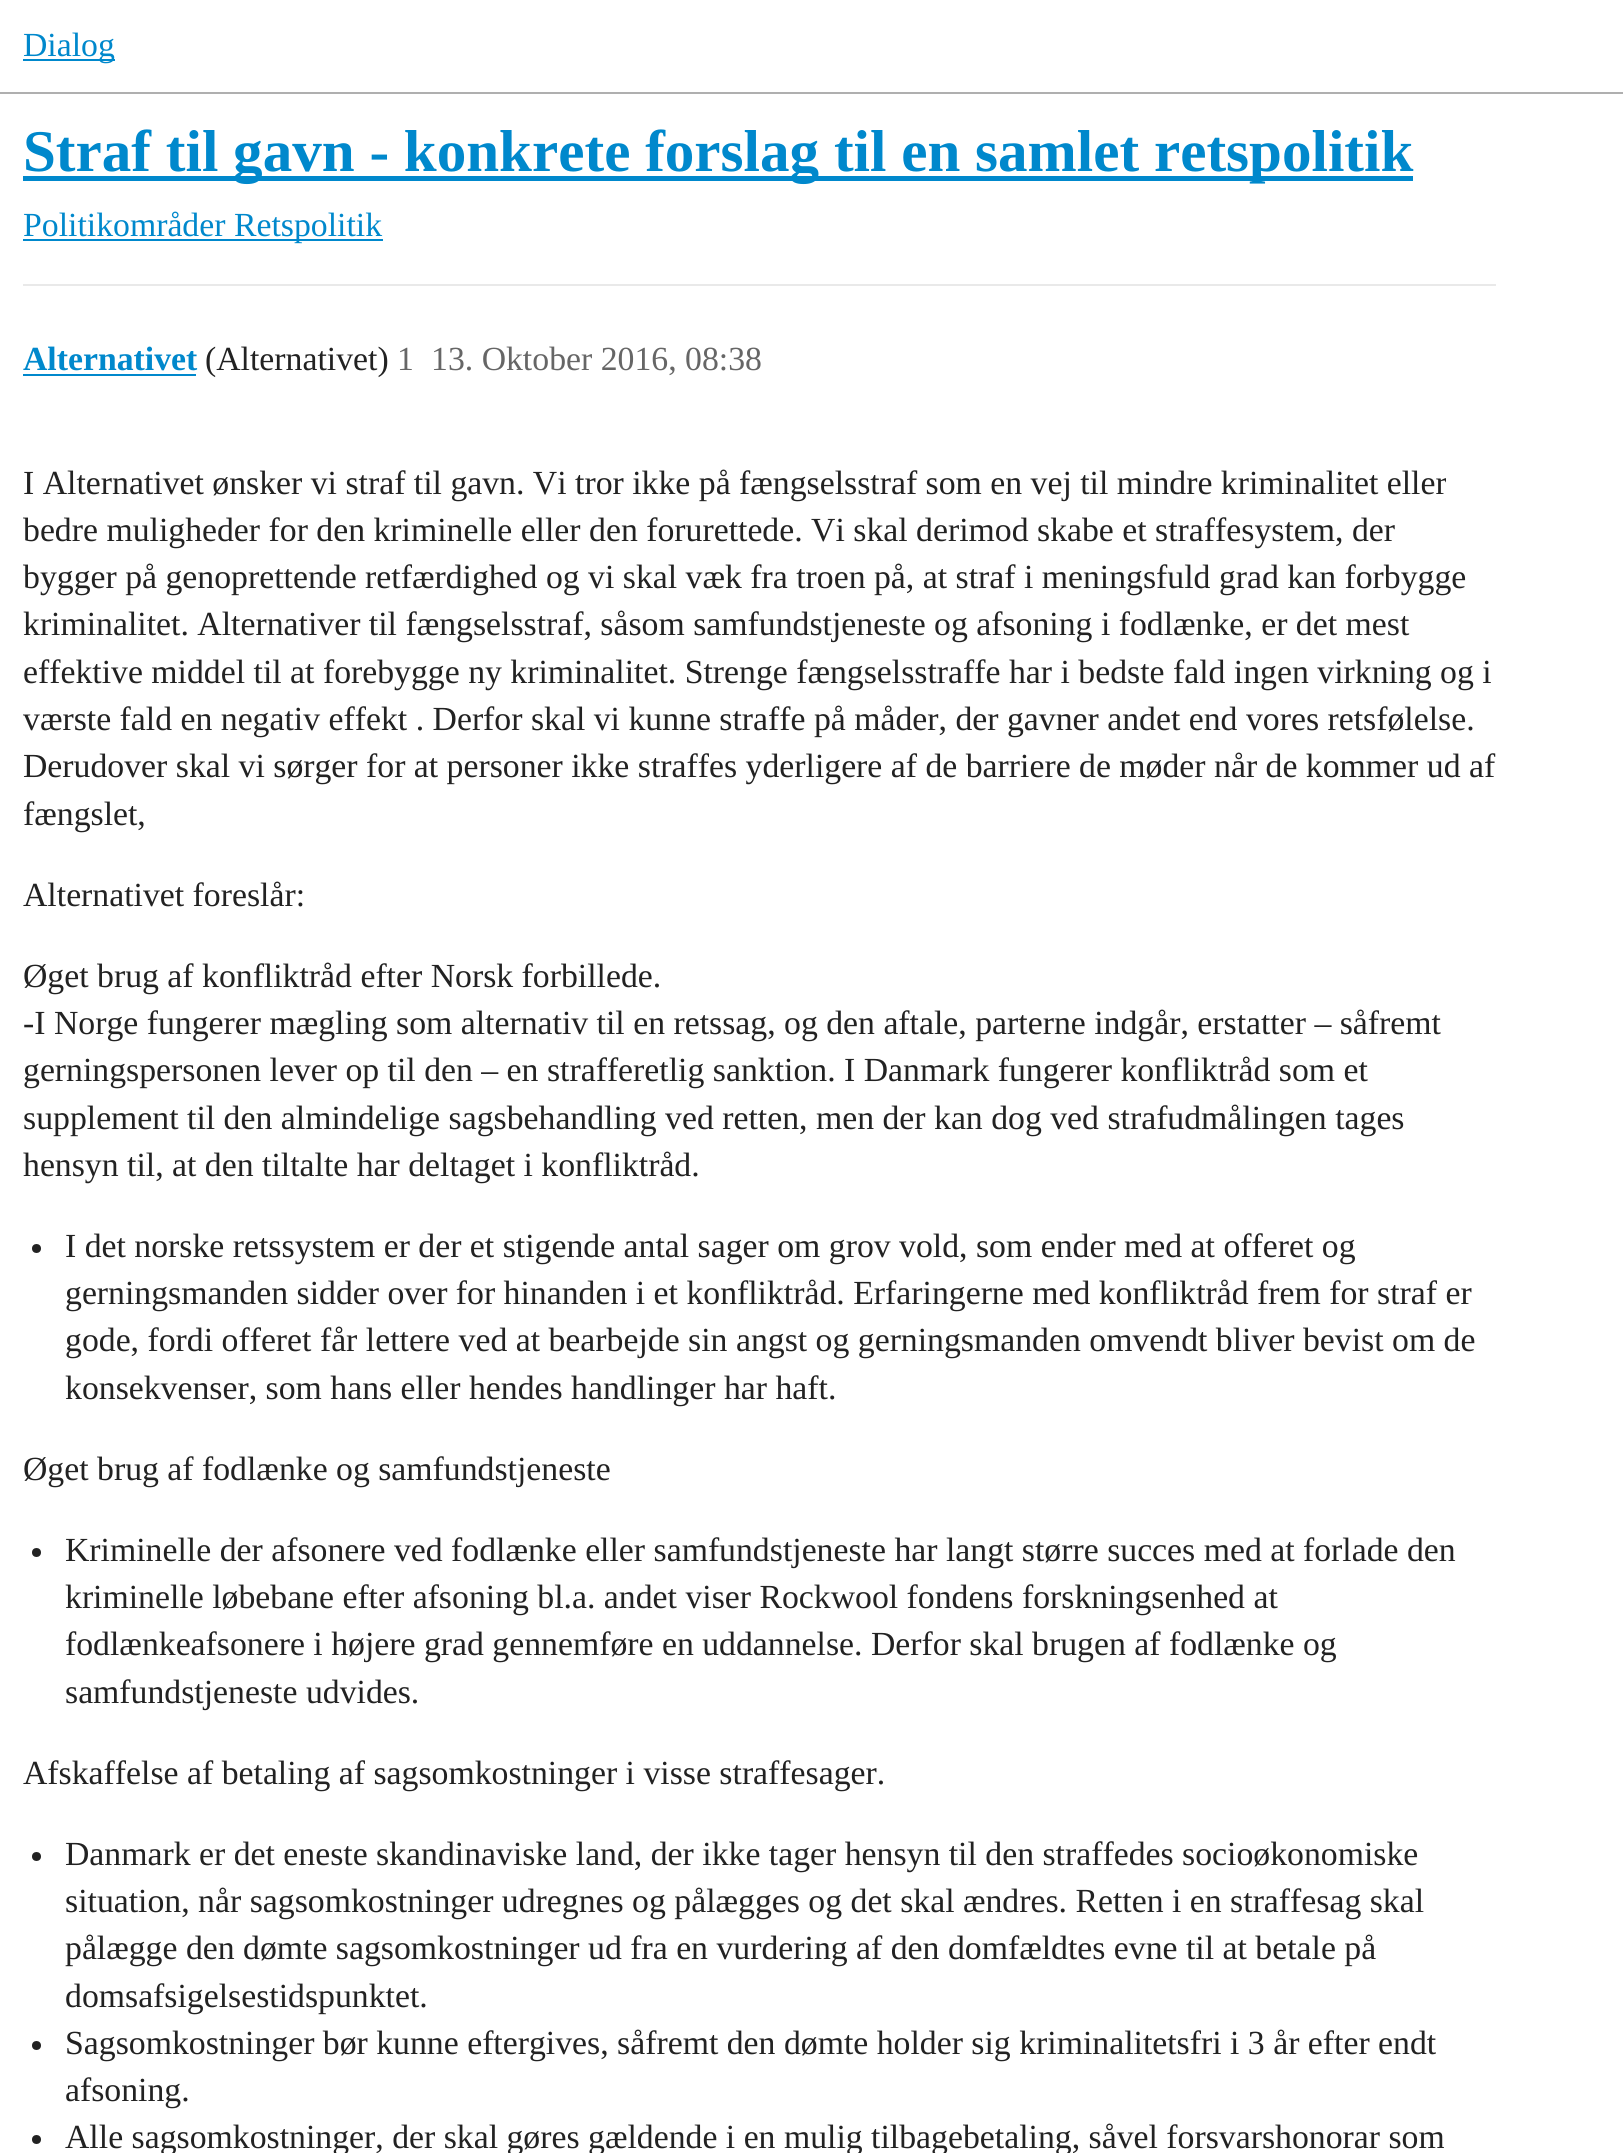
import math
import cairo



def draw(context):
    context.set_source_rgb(1, 1, 1)
    context.paint()
    context.set_source_rgb(175 / 255, 175 / 255, 175 / 255)
    context.rectangle(0, 92, 1623, 2)
    context.fill()
    context.set_source_rgb(0, 136 / 255, 204 / 255)
    context.rectangle(23, 59, 92, 2)
    context.fill()
    context.rectangle(23, 176, 1390, 5)
    context.fill()
    context.rectangle(23, 239, 360, 2)
    context.fill()
    context.set_source_rgb(233 / 255, 233 / 255, 233 / 255)
    context.rectangle(23, 284, 1473, 2)
    context.fill()
    context.set_source_rgb(0, 136 / 255, 204 / 255)
    context.rectangle(23, 374, 173, 2)
    context.fill()
    context.set_source_rgb(34 / 255, 34 / 255, 34 / 255)
    context.arc(36.5, 1248.5, 4.5, 0, 2 * math.pi)
    context.fill()
    context.arc(36.5, 1552.5, 4.5, 0, 2 * math.pi)
    context.fill()
    context.arc(36.5, 1856.5, 4.5, 0, 2 * math.pi)
    context.fill()
    context.arc(36.5, 2045.5, 4.5, 0, 2 * math.pi)
    context.fill()
    context.arc(36.5, 2139.5, 4.5, 0, 2 * math.pi)
    context.fill()
    context.select_font_face("Liberation Serif")
    context.set_font_size(33.75)
    context.set_source_rgb(0, 136 / 255, 204 / 255)
    context.move_to(23, 56)
    context.show_text("Dialog")
    context.select_font_face("Liberation Serif", cairo.FontSlant.NORMAL, cairo.FontWeight.BOLD)
    context.set_font_size(59.1)
    context.move_to(23, 171)
    context.show_text("Straf til gavn - konkrete forslag til en samlet retspolitik")
    context.select_font_face("Liberation Serif")
    context.set_font_size(33.75)
    context.move_to(23, 236)
    context.show_text("Politikområder Retspolitik")
    context.select_font_face("Liberation Serif", cairo.FontSlant.NORMAL, cairo.FontWeight.BOLD)
    context.move_to(23, 370)
    context.show_text("Alternativet")
    context.select_font_face("Liberation Serif")
    context.set_source_rgb(34 / 255, 34 / 255, 34 / 255)
    context.move_to(205, 370)
    context.show_text("(Alternativet)")
    context.set_source_rgb(102 / 255, 102 / 255, 102 / 255)
    context.move_to(397, 370)
    context.show_text("1")
    context.move_to(431, 370)
    context.show_text("13. Oktober 2016, 08:38")
    context.set_source_rgb(34 / 255, 34 / 255, 34 / 255)
    context.move_to(23, 494)
    context.show_text("I Alternativet ønsker vi straf til gavn. Vi tror ikke på fængselsstraf som en vej til mindre kriminalitet eller")
    context.move_to(23, 541)
    context.show_text("bedre muligheder for den kriminelle eller den forurettede. Vi skal derimod skabe et straffesystem, der")
    context.move_to(23, 588)
    context.show_text("bygger på genoprettende retfærdighed og vi skal væk fra troen på, at straf i meningsfuld grad kan forbygge")
    context.move_to(23, 635)
    context.show_text("kriminalitet. Alternativer til fængselsstraf, såsom samfundstjeneste og afsoning i fodlænke, er det mest")
    context.move_to(23, 683)
    context.show_text("effektive middel til at forebygge ny kriminalitet. Strenge fængselsstraffe har i bedste fald ingen virkning og i")
    context.move_to(23, 730)
    context.show_text("værste fald en negativ effekt . Derfor skal vi kunne straffe på måder, der gavner andet end vores retsfølelse.")
    context.move_to(23, 777)
    context.show_text("Derudover skal vi sørger for at personer ikke straffes yderligere af de barriere de møder når de kommer ud af")
    context.move_to(23, 825)
    context.show_text("fængslet,")
    context.move_to(23, 906)
    context.show_text("Alternativet foreslår:")
    context.move_to(23, 987)
    context.show_text("Øget brug af konfliktråd efter Norsk forbillede.")
    context.move_to(23, 1034)
    context.show_text("-I Norge fungerer mægling som alternativ til en retssag, og den aftale, parterne indgår, erstatter – såfremt")
    context.move_to(23, 1081)
    context.show_text("gerningspersonen lever op til den – en strafferetlig sanktion. I Danmark fungerer konfliktråd som et")
    context.move_to(23, 1129)
    context.show_text("supplement til den almindelige sagsbehandling ved retten, men der kan dog ved strafudmålingen tages")
    context.move_to(23, 1176)
    context.show_text("hensyn til, at den tiltalte har deltaget i konfliktråd.")
    context.move_to(65, 1257)
    context.show_text("I det norske retssystem er der et stigende antal sager om grov vold, som ender med at offeret og")
    context.move_to(65, 1304)
    context.show_text("gerningsmanden sidder over for hinanden i et konfliktråd. Erfaringerne med konfliktråd frem for straf er")
    context.move_to(65, 1351)
    context.show_text("gode, fordi offeret får lettere ved at bearbejde sin angst og gerningsmanden omvendt bliver bevist om de")
    context.move_to(65, 1399)
    context.show_text("konsekvenser, som hans eller hendes handlinger har haft.")
    context.move_to(23, 1480)
    context.show_text("Øget brug af fodlænke og samfundstjeneste")
    context.move_to(65, 1561)
    context.show_text("Kriminelle der afsonere ved fodlænke eller samfundstjeneste har langt større succes med at forlade den")
    context.move_to(65, 1608)
    context.show_text("kriminelle løbebane efter afsoning bl.a. andet viser Rockwool fondens forskningsenhed at")
    context.move_to(65, 1655)
    context.show_text("fodlænkeafsonere i højere grad gennemføre en uddannelse. Derfor skal brugen af fodlænke og")
    context.move_to(65, 1703)
    context.show_text("samfundstjeneste udvides.")
    context.move_to(23, 1784)
    context.show_text("Afskaffelse af betaling af sagsomkostninger i visse straffesager.")
    context.move_to(65, 1865)
    context.show_text("Danmark er det eneste skandinaviske land, der ikke tager hensyn til den straffedes socioøkonomiske")
    context.move_to(65, 1912)
    context.show_text("situation, når sagsomkostninger udregnes og pålægges og det skal ændres. Retten i en straffesag skal")
    context.move_to(65, 1959)
    context.show_text("pålægge den dømte sagsomkostninger ud fra en vurdering af den domfældtes evne til at betale på")
    context.move_to(65, 2007)
    context.show_text("domsafsigelsestidspunktet.")
    context.move_to(65, 2054)
    context.show_text("Sagsomkostninger bør kunne eftergives, såfremt den dømte holder sig kriminalitetsfri i 3 år efter endt")
    context.move_to(65, 2101)
    context.show_text("afsoning.")
    context.move_to(65, 2148)
    context.show_text("Alle sagsomkostninger, der skal gøres gældende i en mulig tilbagebetaling, såvel forsvarshonorar som")


surface = cairo.ImageSurface(cairo.Format.RGB24, 1623, 2153)
context = cairo.Context(surface)
options = cairo.FontOptions()
options.set_hint_metrics(cairo.HintMetrics.OFF)
options.set_hint_style(cairo.HintStyle.NONE)
context.set_font_options(options)
context.set_miter_limit(4)
draw(context)
surface.write_to_png("out.png")
